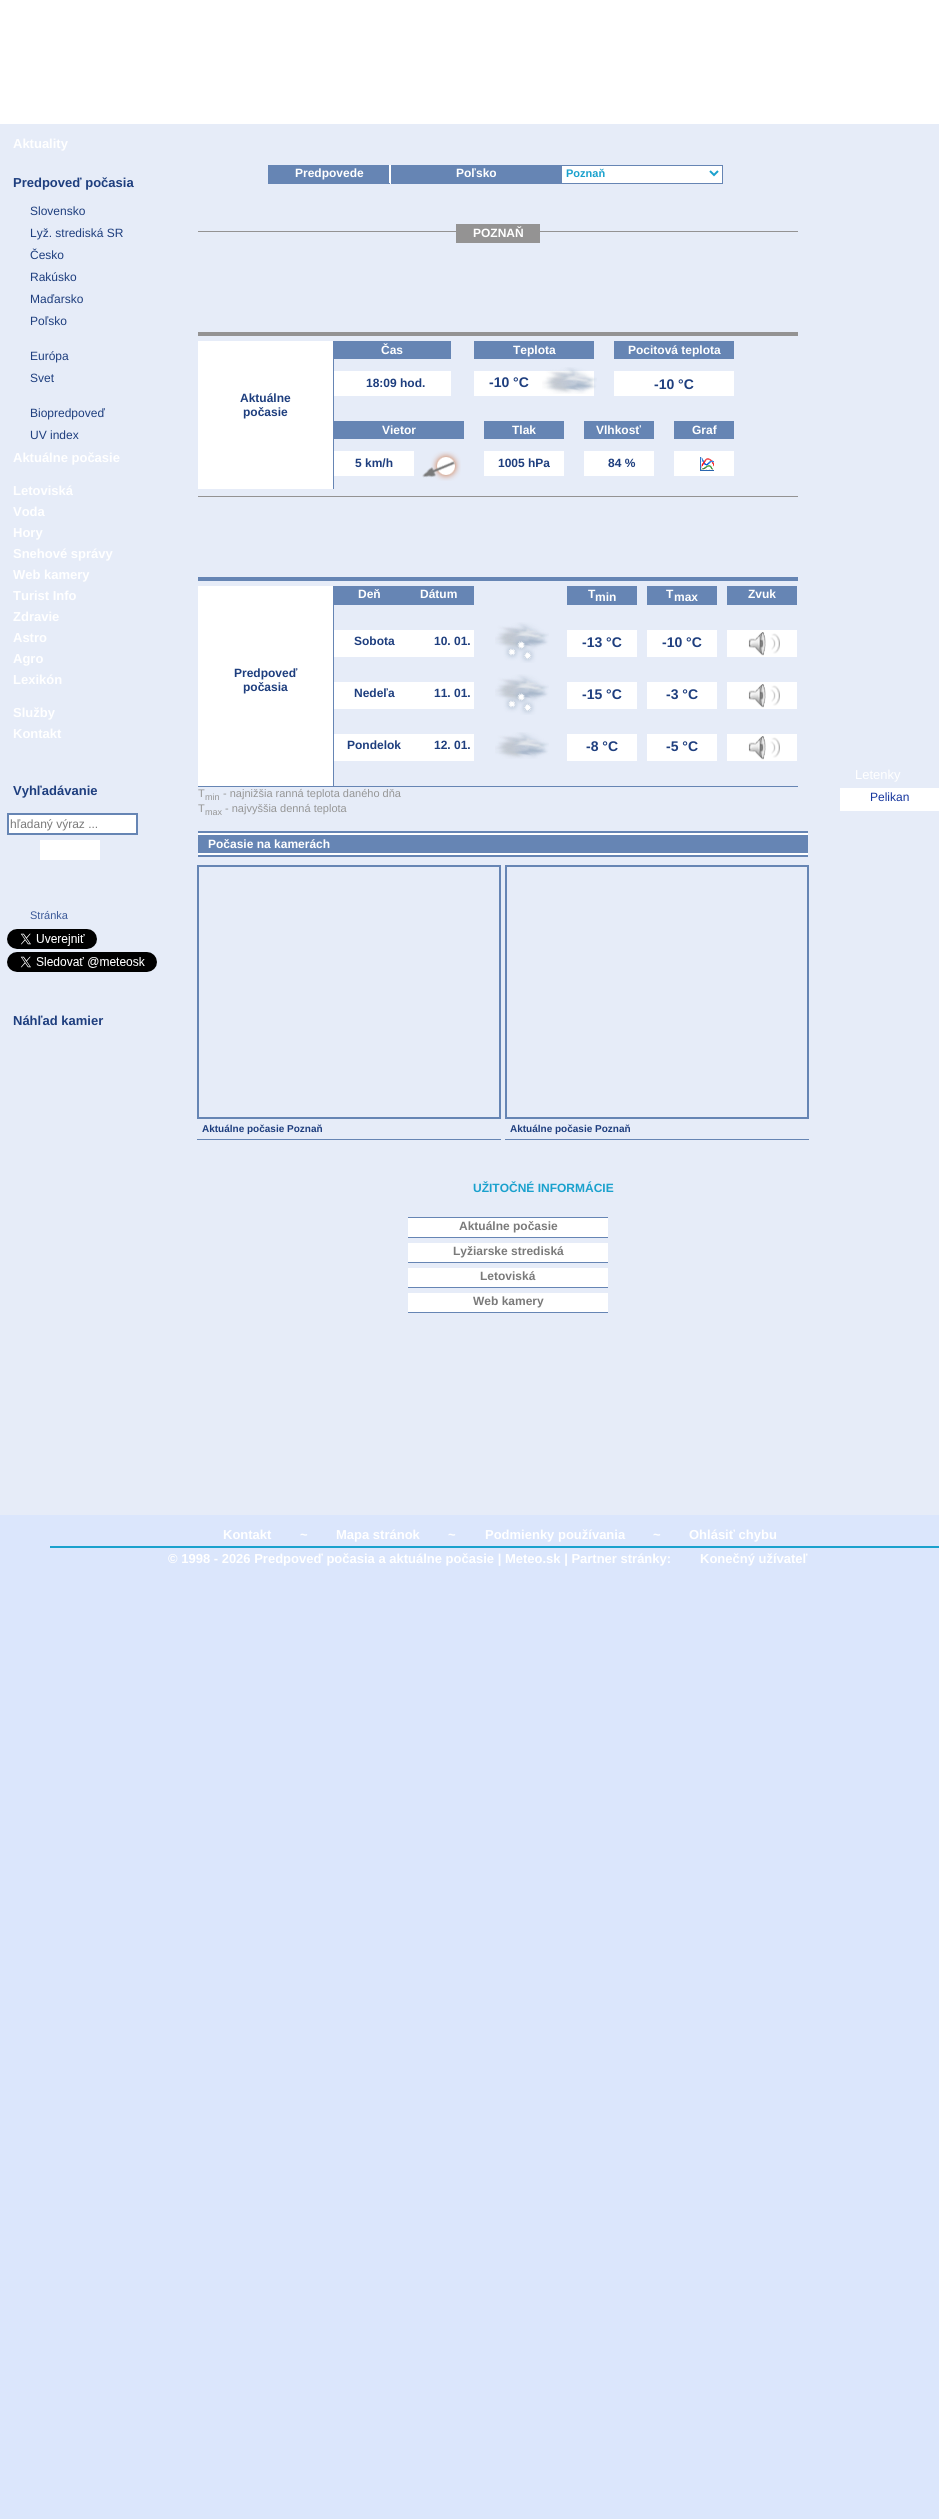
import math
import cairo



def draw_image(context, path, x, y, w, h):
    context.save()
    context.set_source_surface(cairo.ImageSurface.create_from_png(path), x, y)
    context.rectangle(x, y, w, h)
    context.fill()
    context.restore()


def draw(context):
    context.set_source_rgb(219 / 255, 230 / 255, 252 / 255)
    context.paint()
    context.set_source_rgb(1, 1, 1)
    context.rectangle(0, 0, 939, 124)
    context.fill()
    context.set_source_rgb(230 / 255, 236 / 255, 248 / 255)
    context.rectangle(0, 124, 939, 1391)
    context.fill()
    context.set_source_rgb(1, 1, 1)
    context.rectangle(8, 814, 129, 20)
    context.fill_preserve()
    context.set_source_rgb(102 / 255, 133 / 255, 180 / 255)
    context.stroke()
    context.set_source_rgb(1, 1, 1)
    context.rectangle(40, 840, 60, 20)
    context.fill()
    draw_image(context, "images/1.png", 7, 929, 90, 20)
    draw_image(context, "images/2.png", 7, 952, 150, 20)
    context.set_source_rgb(102 / 255, 133 / 255, 180 / 255)
    context.rectangle(268, 165, 121, 18)
    context.fill()
    context.set_source_rgb(1, 1, 1)
    context.rectangle(389, 165, 2, 19)
    context.fill()
    context.set_source_rgb(102 / 255, 133 / 255, 180 / 255)
    context.rectangle(268, 183, 122, 1)
    context.fill()
    context.rectangle(391, 165, 171, 19)
    context.fill()
    context.set_source_rgb(1, 1, 1)
    context.rectangle(562, 166, 160, 17)
    context.fill()
    context.set_source_rgb(102 / 255, 133 / 255, 180 / 255)
    context.rectangle(562, 165, 161, 1)
    context.fill()
    context.rectangle(722, 165, 1, 19)
    context.fill()
    context.rectangle(562, 183, 161, 1)
    context.fill()
    context.new_path()
    context.move_to(710, 171)
    context.line_to(714, 175)
    context.line_to(718, 171)
    context.set_source_rgb(26 / 255, 161 / 255, 205 / 255)
    context.stroke()
    context.set_source_rgb(148 / 255, 147 / 255, 147 / 255)
    context.rectangle(198, 231, 600, 1)
    context.fill()
    context.rectangle(456, 224, 84, 19)
    context.fill()
    context.rectangle(198, 332, 600, 4)
    context.fill()
    context.rectangle(198, 496, 600, 1)
    context.fill()
    context.set_source_rgb(1, 1, 1)
    context.rectangle(198, 341, 135, 148)
    context.fill()
    context.set_source_rgb(102 / 255, 133 / 255, 180 / 255)
    context.rectangle(333, 341, 1, 148)
    context.fill()
    context.rectangle(334, 341, 117, 18)
    context.fill()
    context.set_source_rgb(1, 1, 1)
    context.rectangle(334, 371, 117, 25)
    context.fill()
    context.set_source_rgb(102 / 255, 133 / 255, 180 / 255)
    context.rectangle(474, 341, 120, 18)
    context.fill()
    context.set_source_rgb(1, 1, 1)
    context.rectangle(474, 371, 120, 25)
    context.fill()
    draw_image(context, "images/3.png", 542, 367, 55, 27)
    context.set_source_rgb(102 / 255, 133 / 255, 180 / 255)
    context.rectangle(614, 341, 120, 18)
    context.fill()
    context.set_source_rgb(1, 1, 1)
    context.rectangle(614, 371, 120, 25)
    context.fill()
    context.set_source_rgb(102 / 255, 133 / 255, 180 / 255)
    context.rectangle(334, 421, 130, 18)
    context.fill()
    context.set_source_rgb(1, 1, 1)
    context.rectangle(334, 451, 80, 25)
    context.fill()
    draw_image(context, "images/4.png", 422, 451, 39, 30)
    context.set_source_rgb(102 / 255, 133 / 255, 180 / 255)
    context.rectangle(484, 421, 80, 18)
    context.fill()
    context.set_source_rgb(1, 1, 1)
    context.rectangle(484, 451, 80, 25)
    context.fill()
    context.set_source_rgb(102 / 255, 133 / 255, 180 / 255)
    context.rectangle(584, 421, 70, 18)
    context.fill()
    context.set_source_rgb(1, 1, 1)
    context.rectangle(584, 451, 70, 25)
    context.fill()
    context.set_source_rgb(102 / 255, 133 / 255, 180 / 255)
    context.rectangle(674, 421, 60, 18)
    context.fill()
    context.set_source_rgb(1, 1, 1)
    context.rectangle(674, 451, 60, 25)
    context.fill()
    draw_image(context, "images/5.png", 700, 457, 14, 14)
    context.set_source_rgb(102 / 255, 133 / 255, 180 / 255)
    context.rectangle(198, 577, 600, 4)
    context.fill()
    context.set_source_rgb(1, 1, 1)
    context.rectangle(198, 586, 135, 200)
    context.fill()
    context.set_source_rgb(102 / 255, 133 / 255, 180 / 255)
    context.rectangle(333, 586, 1, 200)
    context.fill()
    context.rectangle(334, 586, 140, 19)
    context.fill()
    context.rectangle(567, 586, 70, 19)
    context.fill()
    context.rectangle(647, 586, 70, 19)
    context.fill()
    context.rectangle(727, 586, 70, 19)
    context.fill()
    context.set_source_rgb(1, 1, 1)
    context.rectangle(334, 630, 140, 27)
    context.fill()
    draw_image(context, "images/6.png", 495, 622, 54, 41)
    context.rectangle(567, 630, 70, 27)
    context.fill()
    context.rectangle(647, 630, 70, 27)
    context.fill()
    context.rectangle(727, 630, 70, 27)
    context.fill()
    draw_image(context, "images/7.png", 748, 632, 32, 24)
    context.rectangle(334, 682, 140, 27)
    context.fill()
    draw_image(context, "images/6.png", 495, 674, 54, 41)
    context.rectangle(567, 682, 70, 27)
    context.fill()
    context.rectangle(647, 682, 70, 27)
    context.fill()
    context.rectangle(727, 682, 70, 27)
    context.fill()
    draw_image(context, "images/7.png", 748, 684, 32, 24)
    context.rectangle(334, 734, 140, 27)
    context.fill()
    draw_image(context, "images/8.png", 495, 732, 54, 27)
    context.rectangle(567, 734, 70, 27)
    context.fill()
    context.rectangle(647, 734, 70, 27)
    context.fill()
    context.rectangle(727, 734, 70, 27)
    context.fill()
    draw_image(context, "images/7.png", 748, 736, 32, 24)
    context.set_source_rgb(102 / 255, 133 / 255, 180 / 255)
    context.rectangle(198, 786, 600, 1)
    context.fill()
    context.set_source_rgb(1, 1, 1)
    context.rectangle(198, 833, 610, 22)
    context.fill()
    context.set_source_rgb(102 / 255, 133 / 255, 180 / 255)
    context.rectangle(198, 831, 610, 2)
    context.fill()
    context.rectangle(198, 855, 610, 2)
    context.fill()
    context.rectangle(198, 835, 610, 18)
    context.fill()
    context.rectangle(198, 866, 302, 252)
    context.stroke()
    context.rectangle(197, 1139, 304, 1)
    context.fill()
    context.rectangle(506, 866, 302, 252)
    context.stroke()
    context.rectangle(505, 1139, 304, 1)
    context.fill()
    context.set_source_rgb(1, 1, 1)
    context.rectangle(408, 1218, 200, 19)
    context.fill()
    context.set_source_rgb(102 / 255, 133 / 255, 180 / 255)
    context.rectangle(408, 1217, 200, 1)
    context.fill()
    context.rectangle(408, 1237, 200, 1)
    context.fill()
    context.set_source_rgb(1, 1, 1)
    context.rectangle(408, 1243, 200, 19)
    context.fill()
    context.set_source_rgb(102 / 255, 133 / 255, 180 / 255)
    context.rectangle(408, 1262, 200, 1)
    context.fill()
    context.set_source_rgb(1, 1, 1)
    context.rectangle(408, 1268, 200, 19)
    context.fill()
    context.set_source_rgb(102 / 255, 133 / 255, 180 / 255)
    context.rectangle(408, 1287, 200, 1)
    context.fill()
    context.set_source_rgb(1, 1, 1)
    context.rectangle(408, 1293, 200, 19)
    context.fill()
    context.set_source_rgb(102 / 255, 133 / 255, 180 / 255)
    context.rectangle(408, 1312, 200, 1)
    context.fill()
    context.set_source_rgb(1, 1, 1)
    context.rectangle(840, 788, 99, 23)
    context.fill()
    context.set_source_rgb(26 / 255, 161 / 255, 205 / 255)
    context.rectangle(50, 1546, 889, 2)
    context.fill()
    context.select_font_face("Liberation Sans", cairo.FontSlant.NORMAL, cairo.FontWeight.BOLD)
    context.set_font_size(13)
    context.set_source_rgb(1, 1, 1)
    context.move_to(13, 148)
    context.show_text("Aktuality")
    context.set_source_rgb(30 / 255, 62 / 255, 126 / 255)
    context.move_to(13, 187)
    context.show_text("Predpoveď počasia")
    context.select_font_face("Liberation Sans")
    context.set_font_size(12)
    context.move_to(30, 215)
    context.show_text("Slovensko")
    context.move_to(30, 237)
    context.show_text("Lyž. strediská SR")
    context.move_to(30, 259)
    context.show_text("Česko")
    context.move_to(30, 281)
    context.show_text("Rakúsko")
    context.move_to(30, 303)
    context.show_text("Maďarsko")
    context.move_to(30, 325)
    context.show_text("Poľsko")
    context.move_to(30, 360)
    context.show_text("Európa")
    context.move_to(30, 382)
    context.show_text("Svet")
    context.move_to(30, 417)
    context.show_text("Biopredpoveď")
    context.move_to(30, 439)
    context.show_text("UV index")
    context.select_font_face("Liberation Sans", cairo.FontSlant.NORMAL, cairo.FontWeight.BOLD)
    context.set_font_size(13)
    context.set_source_rgb(1, 1, 1)
    context.move_to(13, 462)
    context.show_text("Aktuálne počasie")
    context.move_to(13, 495)
    context.show_text("Letoviská")
    context.move_to(13, 516)
    context.show_text("Voda")
    context.move_to(13, 537)
    context.show_text("Hory")
    context.move_to(13, 558)
    context.show_text("Snehové správy")
    context.move_to(13, 579)
    context.show_text("Web kamery")
    context.move_to(13, 600)
    context.show_text("Turist Info")
    context.move_to(13, 621)
    context.show_text("Zdravie")
    context.move_to(13, 642)
    context.show_text("Astro")
    context.move_to(13, 663)
    context.show_text("Agro")
    context.move_to(13, 684)
    context.show_text("Lexikón")
    context.move_to(13, 717)
    context.show_text("Služby")
    context.move_to(13, 738)
    context.show_text("Kontakt")
    context.set_source_rgb(30 / 255, 62 / 255, 126 / 255)
    context.move_to(13, 795)
    context.show_text("Vyhľadávanie")
    context.select_font_face("Liberation Sans")
    context.set_font_size(12)
    context.set_source_rgb(122 / 255, 122 / 255, 122 / 255)
    context.move_to(10, 828)
    context.show_text("hľadaný výraz ...")
    context.set_font_size(11)
    context.set_source_rgb(59 / 255, 89 / 255, 152 / 255)
    context.move_to(30, 919)
    context.show_text("Stránka")
    context.select_font_face("Liberation Sans", cairo.FontSlant.NORMAL, cairo.FontWeight.BOLD)
    context.set_font_size(13)
    context.set_source_rgb(30 / 255, 62 / 255, 126 / 255)
    context.move_to(13, 1025)
    context.show_text("Náhľad kamier")
    context.set_font_size(12)
    context.set_source_rgb(1, 1, 1)
    context.move_to(295, 177)
    context.show_text("Predpovede")
    context.move_to(456, 177)
    context.show_text("Poľsko")
    context.set_font_size(11)
    context.set_source_rgb(26 / 255, 161 / 255, 205 / 255)
    context.move_to(566, 177)
    context.show_text("Poznaň")
    context.set_font_size(12)
    context.set_source_rgb(1, 1, 1)
    context.move_to(473, 237)
    context.show_text("POZNAŇ")
    context.set_source_rgb(30 / 255, 62 / 255, 126 / 255)
    context.move_to(240, 402)
    context.show_text("Aktuálne")
    context.move_to(243, 416)
    context.show_text("počasie")
    context.set_source_rgb(1, 1, 1)
    context.move_to(381, 354)
    context.show_text("Čas")
    context.set_source_rgb(30 / 255, 62 / 255, 126 / 255)
    context.move_to(366, 387)
    context.show_text("18:09 hod.")
    context.set_source_rgb(1, 1, 1)
    context.move_to(513, 354)
    context.show_text("Teplota")
    context.set_font_size(14)
    context.set_source_rgb(30 / 255, 62 / 255, 126 / 255)
    context.move_to(489, 387)
    context.show_text("-10 °C")
    context.set_font_size(12)
    context.set_source_rgb(1, 1, 1)
    context.move_to(628, 354)
    context.show_text("Pocitová teplota")
    context.set_font_size(14)
    context.set_source_rgb(30 / 255, 62 / 255, 126 / 255)
    context.move_to(654, 389)
    context.show_text("-10 °C")
    context.set_font_size(12)
    context.set_source_rgb(1, 1, 1)
    context.move_to(382, 434)
    context.show_text("Vietor")
    context.set_source_rgb(30 / 255, 62 / 255, 126 / 255)
    context.move_to(355, 467)
    context.show_text("5 km/h")
    context.set_source_rgb(1, 1, 1)
    context.move_to(512, 434)
    context.show_text("Tlak")
    context.set_source_rgb(30 / 255, 62 / 255, 126 / 255)
    context.move_to(498, 467)
    context.show_text("1005 hPa")
    context.set_source_rgb(1, 1, 1)
    context.move_to(596, 434)
    context.show_text("Vlhkosť")
    context.set_source_rgb(30 / 255, 62 / 255, 126 / 255)
    context.move_to(608, 467)
    context.show_text("84 %")
    context.set_source_rgb(1, 1, 1)
    context.move_to(692, 434)
    context.show_text("Graf")
    context.set_source_rgb(30 / 255, 62 / 255, 126 / 255)
    context.move_to(234, 677)
    context.show_text("Predpoveď")
    context.move_to(243, 691)
    context.show_text("počasia")
    context.set_source_rgb(1, 1, 1)
    context.move_to(358, 598)
    context.show_text("Deň")
    context.move_to(420, 598)
    context.show_text("Dátum")
    context.move_to(588, 598)
    context.show_text("T")
    context.move_to(595, 601)
    context.show_text("min")
    context.move_to(666, 598)
    context.show_text("T")
    context.move_to(674, 601)
    context.show_text("max")
    context.move_to(748, 598)
    context.show_text("Zvuk")
    context.set_source_rgb(30 / 255, 62 / 255, 126 / 255)
    context.move_to(354, 645)
    context.show_text("Sobota")
    context.move_to(434, 645)
    context.show_text("10. 01.")
    context.set_font_size(14)
    context.move_to(582, 647)
    context.show_text("-13 °C")
    context.move_to(662, 647)
    context.show_text("-10 °C")
    context.set_font_size(12)
    context.move_to(354, 697)
    context.show_text("Nedeľa")
    context.move_to(434, 697)
    context.show_text("11. 01.")
    context.set_font_size(14)
    context.move_to(582, 699)
    context.show_text("-15 °C")
    context.move_to(666, 699)
    context.show_text("-3 °C")
    context.set_font_size(12)
    context.move_to(347, 749)
    context.show_text("Pondelok")
    context.move_to(434, 749)
    context.show_text("12. 01.")
    context.set_font_size(14)
    context.move_to(586, 751)
    context.show_text("-8 °C")
    context.move_to(666, 751)
    context.show_text("-5 °C")
    context.select_font_face("Liberation Sans")
    context.set_font_size(11)
    context.set_source_rgb(150 / 255, 150 / 255, 150 / 255)
    context.move_to(198, 797)
    context.show_text("T")
    context.set_font_size(9)
    context.move_to(205, 800)
    context.show_text("min")
    context.set_font_size(11)
    context.move_to(223, 797)
    context.show_text("- najnižšia ranná teplota daného dňa")
    context.move_to(198, 812)
    context.show_text("T")
    context.move_to(225, 812)
    context.show_text("- najvyššia denná teplota")
    context.set_font_size(9)
    context.move_to(205, 815)
    context.show_text("max")
    context.select_font_face("Liberation Sans", cairo.FontSlant.NORMAL, cairo.FontWeight.BOLD)
    context.set_font_size(12)
    context.set_source_rgb(1, 1, 1)
    context.move_to(208, 848)
    context.show_text("Počasie na kamerách")
    context.set_font_size(10)
    context.set_source_rgb(30 / 255, 62 / 255, 126 / 255)
    context.move_to(202, 1132)
    context.show_text("Aktuálne počasie Poznaň")
    context.move_to(510, 1132)
    context.show_text("Aktuálne počasie Poznaň")
    context.set_font_size(12)
    context.set_source_rgb(26 / 255, 161 / 255, 205 / 255)
    context.move_to(473, 1192)
    context.show_text("UŽITOČNÉ INFORMÁCIE")
    context.set_source_rgb(122 / 255, 122 / 255, 122 / 255)
    context.move_to(459, 1230)
    context.show_text("Aktuálne počasie")
    context.move_to(453, 1255)
    context.show_text("Lyžiarske strediská")
    context.move_to(480, 1280)
    context.show_text("Letoviská")
    context.move_to(473, 1305)
    context.show_text("Web kamery")
    context.select_font_face("Liberation Sans")
    context.set_font_size(13)
    context.set_source_rgb(1, 1, 1)
    context.move_to(855, 779)
    context.show_text("Letenky")
    context.set_font_size(12)
    context.set_source_rgb(21 / 255, 53 / 255, 157 / 255)
    context.move_to(870, 801)
    context.show_text("Pelikan")
    context.select_font_face("Liberation Sans", cairo.FontSlant.NORMAL, cairo.FontWeight.BOLD)
    context.set_font_size(13)
    context.set_source_rgb(1, 1, 1)
    context.move_to(223, 1539)
    context.show_text("Kontakt")
    context.move_to(300, 1539)
    context.show_text("~")
    context.move_to(336, 1539)
    context.show_text("Mapa stránok")
    context.move_to(448, 1539)
    context.show_text("~")
    context.move_to(485, 1539)
    context.show_text("Podmienky používania")
    context.move_to(653, 1539)
    context.show_text("~")
    context.move_to(689, 1539)
    context.show_text("Ohlásiť chybu")
    context.move_to(168, 1563)
    context.show_text("© 1998 - 2026 Predpoveď počasia a aktuálne počasie | Meteo.sk | Partner stránky:")
    context.move_to(700, 1563)
    context.show_text("Konečný užívateľ")


surface = cairo.ImageSurface(cairo.Format.RGB24, 939, 2519)
context = cairo.Context(surface)
options = cairo.FontOptions()
options.set_hint_metrics(cairo.HintMetrics.OFF)
options.set_hint_style(cairo.HintStyle.NONE)
context.set_font_options(options)
context.set_miter_limit(4)
draw(context)
surface.write_to_png("out.png")
